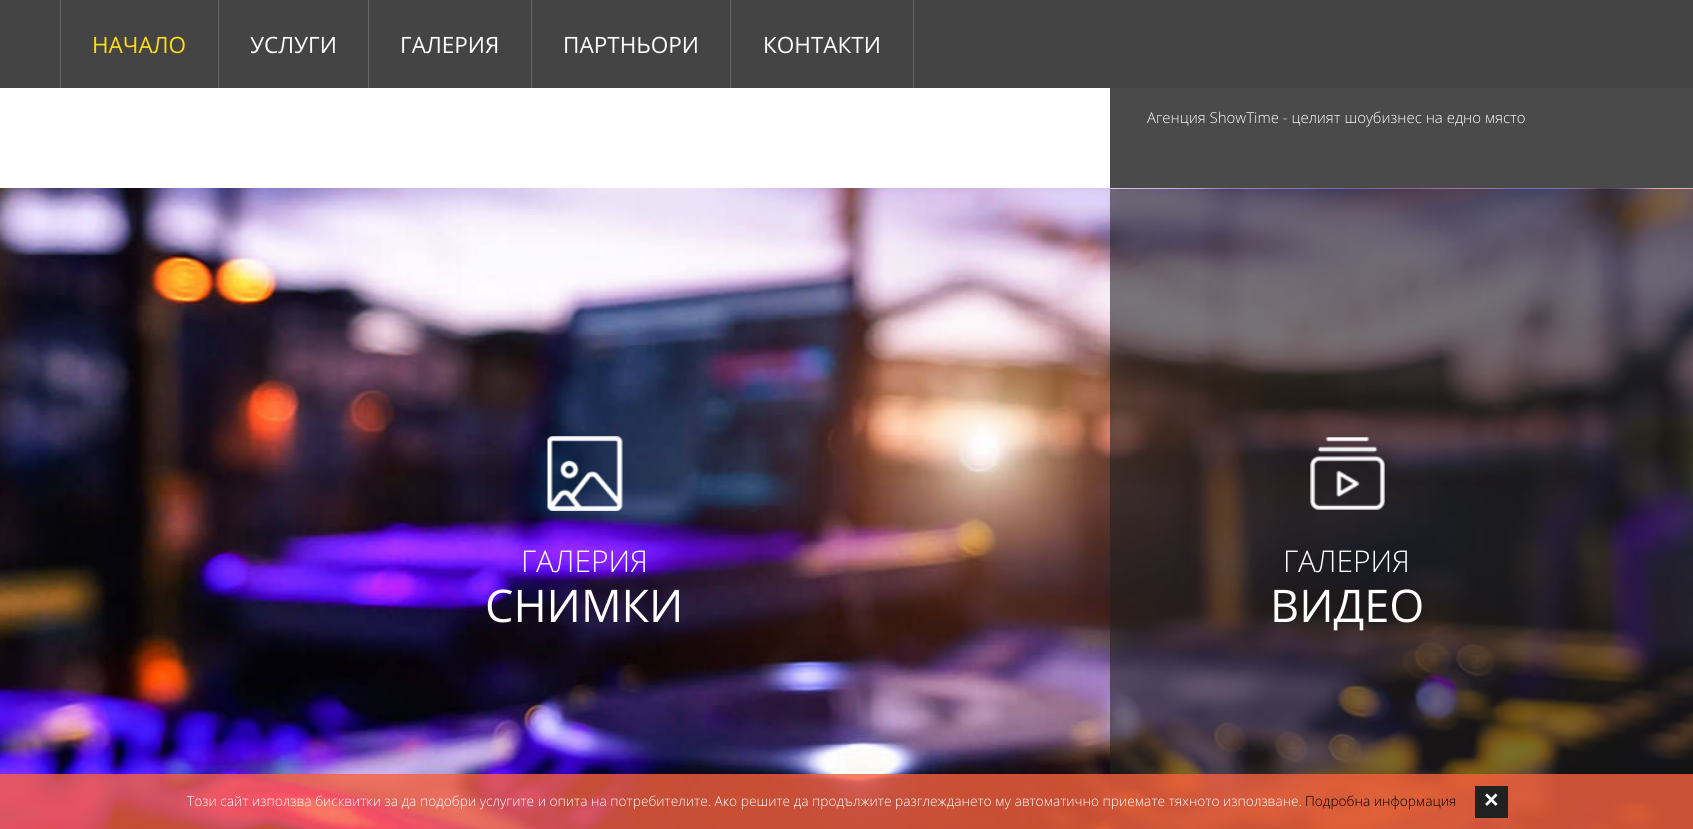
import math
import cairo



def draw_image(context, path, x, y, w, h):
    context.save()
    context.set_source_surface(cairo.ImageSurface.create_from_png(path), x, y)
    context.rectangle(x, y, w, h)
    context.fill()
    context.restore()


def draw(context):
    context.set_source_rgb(1, 1, 1)
    context.paint()
    context.set_source_rgb(68 / 255, 68 / 255, 68 / 255)
    context.rectangle(0, 0, 1693, 88)
    context.fill()
    context.set_source_rgb(102 / 255, 102 / 255, 102 / 255)
    context.rectangle(60, 0, 1, 88)
    context.fill()
    context.rectangle(218, 0, 1, 88)
    context.fill()
    context.rectangle(368, 0, 1, 88)
    context.fill()
    context.rectangle(531, 0, 1, 88)
    context.fill()
    context.rectangle(730, 0, 1, 88)
    context.fill()
    context.rectangle(913, 0, 1, 88)
    context.fill()
    context.set_source_rgb(74 / 255, 74 / 255, 74 / 255)
    context.rectangle(1110, 88, 583, 100)
    context.fill()
    draw_image(context, "images/1.png", 0, 188, 1693, 641)
    draw_image(context, "images/2.png", 547, 436, 76, 75)
    context.set_source_rgba(33 / 255, 33 / 255, 33 / 255, 0.6)
    context.rectangle(1110, 189, 583, 640)
    context.fill()
    draw_image(context, "images/3.png", 1310, 437, 75, 73)
    context.set_source_rgba(246 / 255, 96 / 255, 62 / 255, 0.8)
    context.rectangle(0, 774, 1693, 55)
    context.fill()
    context.set_source_rgb(33 / 255, 33 / 255, 33 / 255)
    context.rectangle(1475, 786, 33, 32)
    context.fill()
    context.select_font_face("Open Sans")
    context.set_font_size(22.5)
    context.set_source_rgb(1, 219 / 255, 20 / 255)
    context.move_to(92, 53)
    context.show_text("НАЧАЛО")
    context.set_source_rgb(1, 1, 1)
    context.move_to(250, 53)
    context.show_text("УСЛУГИ")
    context.move_to(400, 53)
    context.show_text("ГАЛЕРИЯ")
    context.move_to(563, 53)
    context.show_text("ПАРТНЬОРИ")
    context.move_to(763, 53)
    context.show_text("КОНТАКТИ")
    context.select_font_face("Open Sans Light")
    context.set_font_size(15)
    context.move_to(1147, 123)
    context.show_text("Агенция ShowTime - целият шоубизнес на едно място")
    context.set_font_size(30)
    context.move_to(521, 572)
    context.show_text("ГАЛЕРИЯ")
    context.select_font_face("Open Sans")
    context.set_font_size(45)
    context.move_to(485, 622)
    context.show_text("СНИМКИ")
    context.select_font_face("Open Sans Light")
    context.set_font_size(30)
    context.move_to(1283, 572)
    context.show_text("ГАЛЕРИЯ")
    context.select_font_face("Open Sans")
    context.set_font_size(45)
    context.move_to(1270, 622)
    context.show_text("ВИДЕО")
    context.select_font_face("Open Sans Light")
    context.set_font_size(13.75)
    context.move_to(187, 806)
    context.show_text("Този сайт използва бисквитки за да подобри услугите и опита на потребителите. Ако решите да продължите разглеждането му автоматично приемате тяхното използване.")
    context.set_source_rgb(0, 0, 0)
    context.move_to(1305, 806)
    context.show_text("Подробна информация")
    context.select_font_face("Liberation Sans", cairo.FontSlant.NORMAL, cairo.FontWeight.BOLD)
    context.set_font_size(25)
    context.set_source_rgb(1, 1, 1)
    context.move_to(1484, 808)
    context.show_text("×")


surface = cairo.ImageSurface(cairo.Format.RGB24, 1693, 829)
context = cairo.Context(surface)
options = cairo.FontOptions()
options.set_hint_metrics(cairo.HintMetrics.OFF)
options.set_hint_style(cairo.HintStyle.NONE)
context.set_font_options(options)
context.set_miter_limit(4)
draw(context)
surface.write_to_png("out.png")
